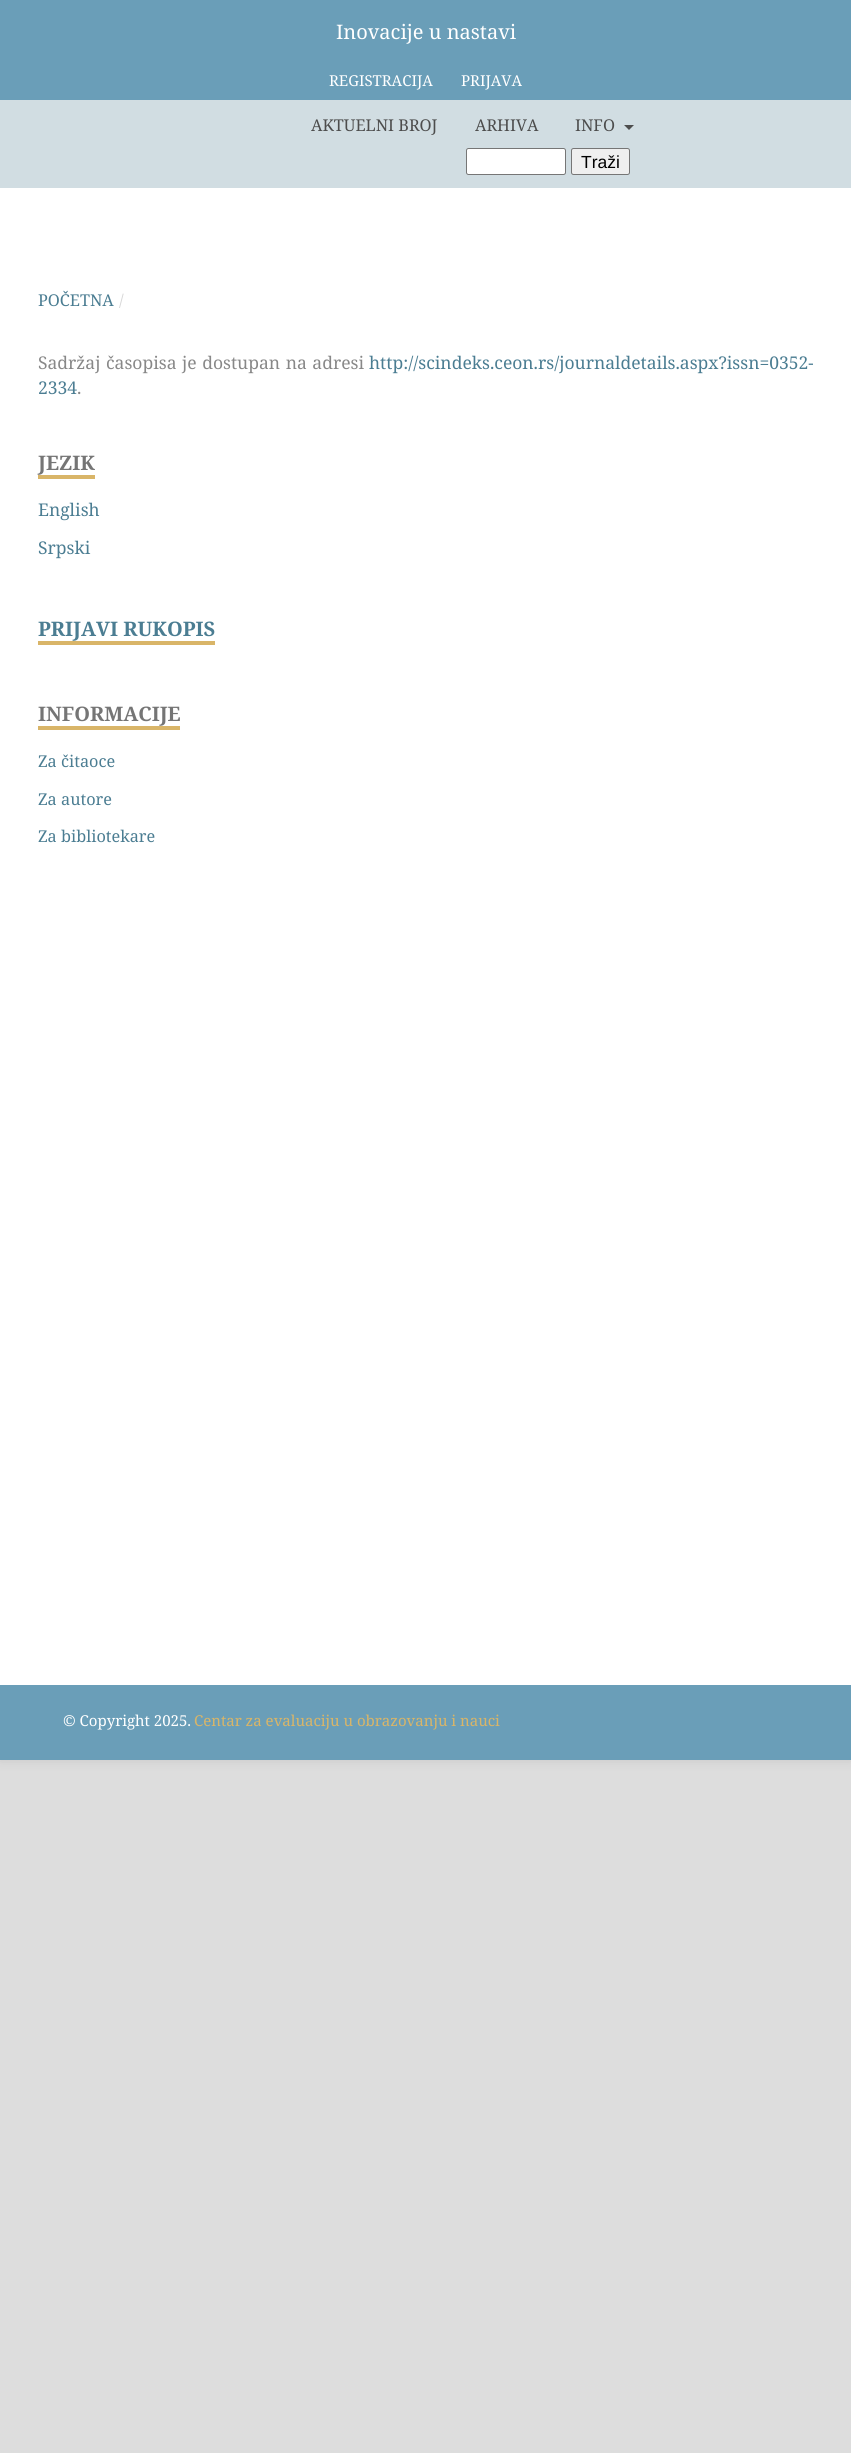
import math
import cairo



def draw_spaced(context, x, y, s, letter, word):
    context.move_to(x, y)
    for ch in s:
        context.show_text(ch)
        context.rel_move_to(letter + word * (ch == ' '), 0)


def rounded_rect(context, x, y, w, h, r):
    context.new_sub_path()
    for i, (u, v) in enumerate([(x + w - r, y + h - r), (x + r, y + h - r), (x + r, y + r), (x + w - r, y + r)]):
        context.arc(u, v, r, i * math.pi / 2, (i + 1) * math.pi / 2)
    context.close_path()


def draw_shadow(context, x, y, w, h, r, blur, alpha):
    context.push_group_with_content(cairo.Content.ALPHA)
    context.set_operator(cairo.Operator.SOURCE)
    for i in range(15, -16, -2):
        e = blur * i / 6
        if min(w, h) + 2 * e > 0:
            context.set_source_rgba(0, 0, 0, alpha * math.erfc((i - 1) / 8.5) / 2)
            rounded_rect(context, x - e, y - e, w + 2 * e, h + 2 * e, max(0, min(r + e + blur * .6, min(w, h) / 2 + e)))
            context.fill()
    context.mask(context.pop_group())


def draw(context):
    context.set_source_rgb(221 / 255, 221 / 255, 221 / 255)
    context.paint()
    context.set_source_rgb(0, 0, 0)
    draw_shadow(context, 0, 0, 851, 1760, 0, 6, 0.1)
    context.set_source_rgb(1, 1, 1)
    context.rectangle(0, 188, 851, 1497)
    context.fill()
    context.set_source_rgb(106 / 255, 158 / 255, 184 / 255)
    context.rectangle(0, 0, 851, 100)
    context.fill()
    context.set_source_rgb(209 / 255, 221 / 255, 226 / 255)
    context.rectangle(0, 100, 851, 88)
    context.fill()
    context.set_source_rgb(77 / 255, 77 / 255, 77 / 255)
    context.new_path()
    context.move_to(624, 125)
    context.line_to(634, 125)
    context.line_to(629, 130)
    context.close_path()
    context.fill()
    context.set_source_rgb(1, 1, 1)
    rounded_rect(context, 466.5, 148.5, 99, 26, 2)
    context.fill_preserve()
    context.set_source_rgb(118 / 255, 118 / 255, 118 / 255)
    context.set_line_width(1)
    context.stroke()
    context.set_source_rgb(239 / 255, 239 / 255, 239 / 255)
    rounded_rect(context, 571.5, 148.5, 58, 26, 2)
    context.fill_preserve()
    context.set_source_rgb(118 / 255, 118 / 255, 118 / 255)
    context.stroke()
    context.set_source_rgb(217 / 255, 181 / 255, 104 / 255)
    context.rectangle(38, 475, 57, 4)
    context.fill()
    context.rectangle(38, 641, 177, 4)
    context.fill()
    context.rectangle(38, 726, 142, 4)
    context.fill()
    context.set_source_rgb(106 / 255, 158 / 255, 184 / 255)
    context.rectangle(0, 1685, 851, 75)
    context.fill()
    context.select_font_face("Noto Serif")
    context.set_font_size(20)
    context.set_source_rgb(1, 1, 1)
    context.move_to(336, 39)
    context.show_text("Inovacije u nastavi")
    context.set_font_size(15)
    context.move_to(329, 86)
    context.show_text("REGISTRACIJA")
    context.move_to(461, 86)
    context.show_text("PRIJAVA")
    context.set_font_size(16.25)
    context.set_source_rgb(77 / 255, 77 / 255, 77 / 255)
    context.move_to(311, 131)
    context.show_text("AKTUELNI BROJ")
    context.move_to(475, 131)
    context.show_text("ARHIVA")
    context.move_to(575, 131)
    context.show_text("INFO")
    context.select_font_face("Liberation Sans")
    context.set_font_size(17.5)
    context.set_source_rgb(0, 0, 0)
    context.move_to(581, 168)
    context.show_text("Traži")
    context.select_font_face("Noto Serif")
    context.set_font_size(16.25)
    context.set_source_rgb(75 / 255, 125 / 255, 146 / 255)
    context.move_to(38, 306)
    context.show_text("POČETNA")
    context.set_source_rgb(214 / 255, 214 / 255, 214 / 255)
    context.move_to(119, 306)
    context.show_text("/")
    context.set_font_size(17.5)
    context.set_source_rgb(136 / 255, 136 / 255, 136 / 255)
    draw_spaced(context, 38, 369, "Sadržaj časopisa je dostupan na adresi", 0, 1)
    context.set_source_rgb(75 / 255, 125 / 255, 146 / 255)
    context.move_to(369, 369)
    context.show_text("http://scindeks.ceon.rs/journaldetails.aspx?issn=0352-")
    context.move_to(38, 394)
    context.show_text("2334")
    context.set_source_rgb(136 / 255, 136 / 255, 136 / 255)
    context.move_to(77, 394)
    context.show_text(".")
    context.select_font_face("Noto Serif", cairo.FontSlant.NORMAL, cairo.FontWeight.BOLD)
    context.set_font_size(20)
    context.set_source_rgb(117 / 255, 117 / 255, 117 / 255)
    context.move_to(38, 470)
    context.show_text("JEZIK")
    context.select_font_face("Noto Serif")
    context.set_font_size(17.5)
    context.set_source_rgb(75 / 255, 125 / 255, 146 / 255)
    context.move_to(38, 516)
    context.show_text("English")
    context.move_to(38, 554)
    context.show_text("Srpski")
    context.select_font_face("Noto Serif", cairo.FontSlant.NORMAL, cairo.FontWeight.BOLD)
    context.set_font_size(20)
    context.move_to(38, 636)
    context.show_text("PRIJAVI RUKOPIS")
    context.set_source_rgb(117 / 255, 117 / 255, 117 / 255)
    context.move_to(38, 721)
    context.show_text("INFORMACIJE")
    context.select_font_face("Noto Serif")
    context.set_font_size(16.25)
    context.set_source_rgb(75 / 255, 125 / 255, 146 / 255)
    context.move_to(38, 767)
    context.show_text("Za čitaoce")
    context.move_to(38, 805)
    context.show_text("Za autore")
    context.move_to(38, 842)
    context.show_text("Za bibliotekare")
    context.set_font_size(15)
    context.set_source_rgb(1, 1, 1)
    context.move_to(63, 1726)
    context.show_text("© Copyright 2025.")
    context.set_source_rgb(217 / 255, 181 / 255, 104 / 255)
    context.move_to(194, 1726)
    context.show_text("Centar za evaluaciju u obrazovanju i nauci")


surface = cairo.ImageSurface(cairo.Format.RGB24, 851, 2453)
context = cairo.Context(surface)
options = cairo.FontOptions()
options.set_hint_metrics(cairo.HintMetrics.OFF)
options.set_hint_style(cairo.HintStyle.NONE)
context.set_font_options(options)
context.set_miter_limit(4)
draw(context)
surface.write_to_png("out.png")
